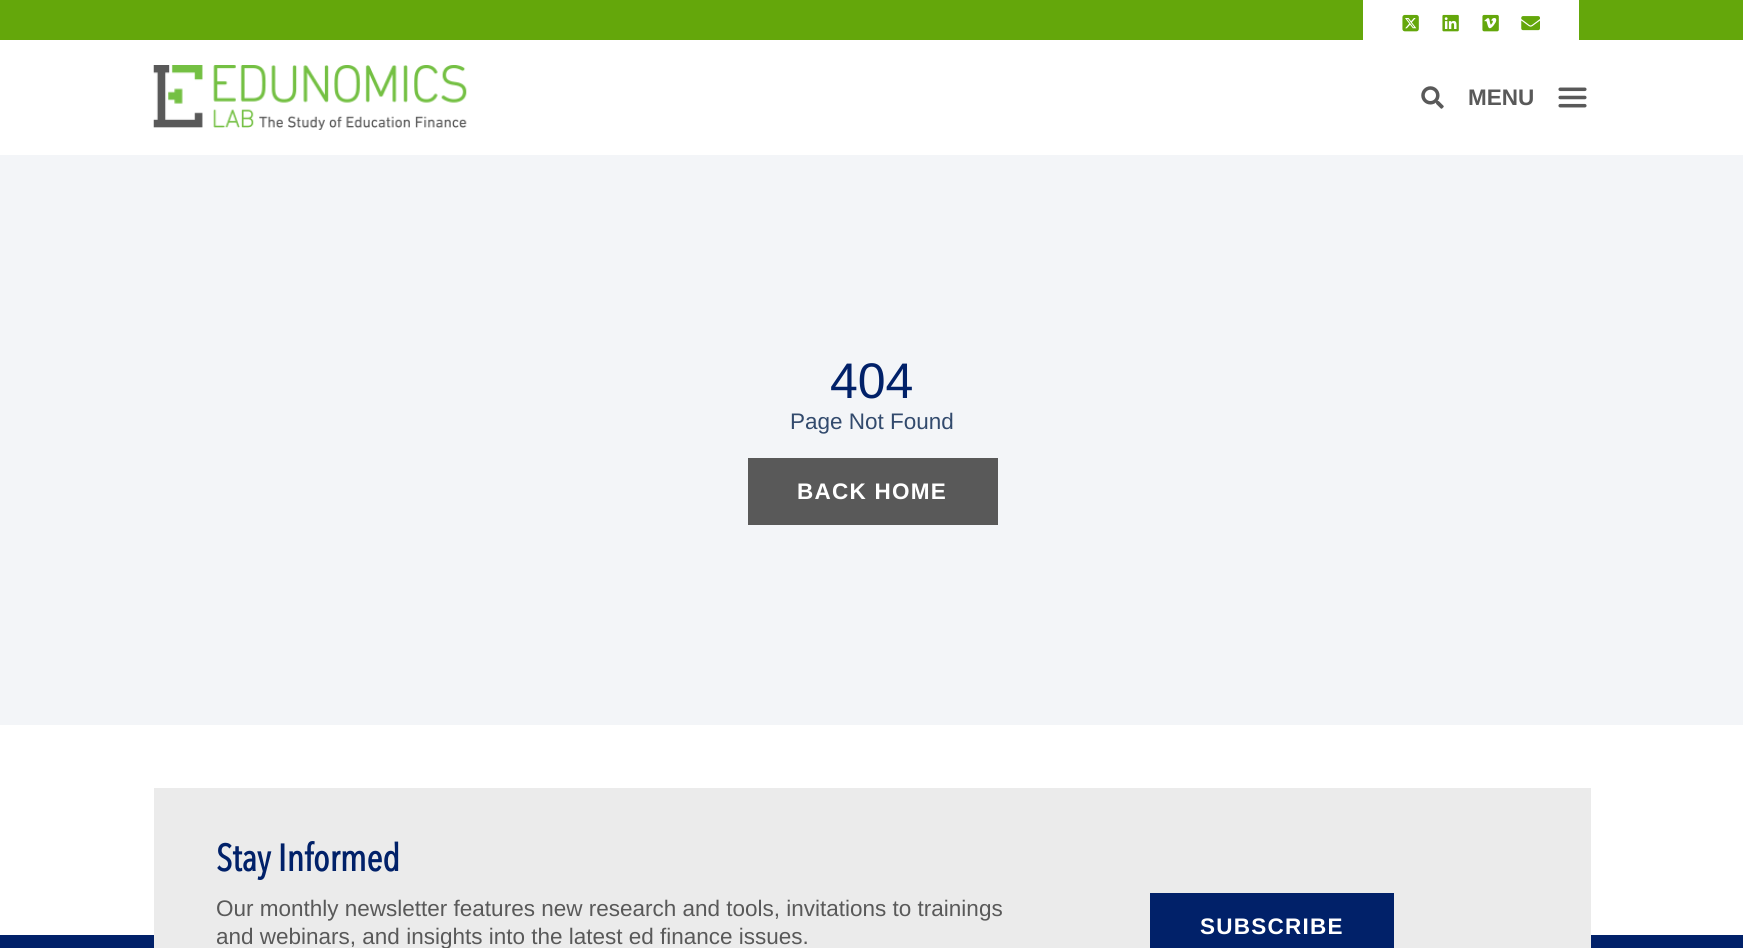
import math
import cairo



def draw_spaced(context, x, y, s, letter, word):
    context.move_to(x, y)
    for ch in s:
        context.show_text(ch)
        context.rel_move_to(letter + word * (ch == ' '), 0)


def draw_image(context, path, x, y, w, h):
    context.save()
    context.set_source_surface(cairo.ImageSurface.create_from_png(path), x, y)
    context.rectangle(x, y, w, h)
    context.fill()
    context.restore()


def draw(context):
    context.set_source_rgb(1, 1, 1)
    context.paint()
    context.set_source_rgb(100 / 255, 167 / 255, 11 / 255)
    context.rectangle(0, 0, 1743, 40)
    context.fill()
    context.set_source_rgb(1, 1, 1)
    context.rectangle(1363, 0, 216, 40)
    context.fill()
    draw_image(context, "images/1.png", 1402, 14, 17, 18)
    draw_image(context, "images/2.png", 1442, 14, 17, 18)
    draw_image(context, "images/3.png", 1482, 14, 17, 18)
    draw_image(context, "images/4.png", 1521, 16, 19, 15)
    draw_image(context, "images/5.png", 153, 65, 314, 65)
    draw_image(context, "images/6.png", 1421, 86, 23, 23)
    draw_image(context, "images/7.png", 1558, 87, 29, 21)
    context.set_source_rgb(243 / 255, 245 / 255, 248 / 255)
    context.rectangle(0, 155, 1743, 570)
    context.fill()
    context.set_source_rgb(89 / 255, 89 / 255, 89 / 255)
    context.rectangle(748, 458, 250, 67)
    context.fill()
    context.set_source_rgb(1 / 255, 33 / 255, 105 / 255)
    context.rectangle(0, 935, 1743, 13)
    context.fill()
    context.set_source_rgb(235 / 255, 235 / 255, 235 / 255)
    context.rectangle(154, 788, 1437, 160)
    context.fill()
    context.set_source_rgb(1 / 255, 33 / 255, 105 / 255)
    context.rectangle(1150, 893, 244, 55)
    context.fill()
    context.select_font_face("Liberation Sans", cairo.FontSlant.NORMAL, cairo.FontWeight.BOLD)
    context.set_font_size(22.5)
    context.set_source_rgb(89 / 255, 89 / 255, 89 / 255)
    context.move_to(1468, 105)
    context.show_text("MENU")
    context.select_font_face("Liberation Sans")
    context.set_font_size(50)
    context.set_source_rgb(1 / 255, 33 / 255, 105 / 255)
    context.move_to(830, 398)
    context.show_text("404")
    context.set_font_size(22.5)
    context.set_source_rgb(50 / 255, 74 / 255, 109 / 255)
    context.move_to(790, 429)
    context.show_text("Page Not Found")
    context.select_font_face("Liberation Sans", cairo.FontSlant.NORMAL, cairo.FontWeight.BOLD)
    context.set_source_rgb(1, 1, 1)
    draw_spaced(context, 797, 499, "BACK HOME", 1.25, 0)
    context.select_font_face("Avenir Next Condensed", cairo.FontSlant.NORMAL, cairo.FontWeight.BOLD)
    context.set_font_size(37.5)
    context.set_source_rgb(1 / 255, 33 / 255, 105 / 255)
    context.move_to(216, 871)
    context.show_text("Stay Informed")
    context.select_font_face("Liberation Sans")
    context.set_font_size(22.5)
    context.set_source_rgb(89 / 255, 89 / 255, 89 / 255)
    context.move_to(216, 916)
    context.show_text("Our monthly newsletter features new research and tools, invitations to trainings")
    context.move_to(216, 944)
    context.show_text("and webinars, and insights into the latest ed finance issues.")
    context.select_font_face("Liberation Sans", cairo.FontSlant.NORMAL, cairo.FontWeight.BOLD)
    context.set_source_rgb(1, 1, 1)
    draw_spaced(context, 1200, 934, "SUBSCRIBE", 1.25, 0)


surface = cairo.ImageSurface(cairo.Format.RGB24, 1743, 948)
context = cairo.Context(surface)
options = cairo.FontOptions()
options.set_hint_metrics(cairo.HintMetrics.OFF)
options.set_hint_style(cairo.HintStyle.NONE)
context.set_font_options(options)
context.set_miter_limit(4)
draw(context)
surface.write_to_png("out.png")
